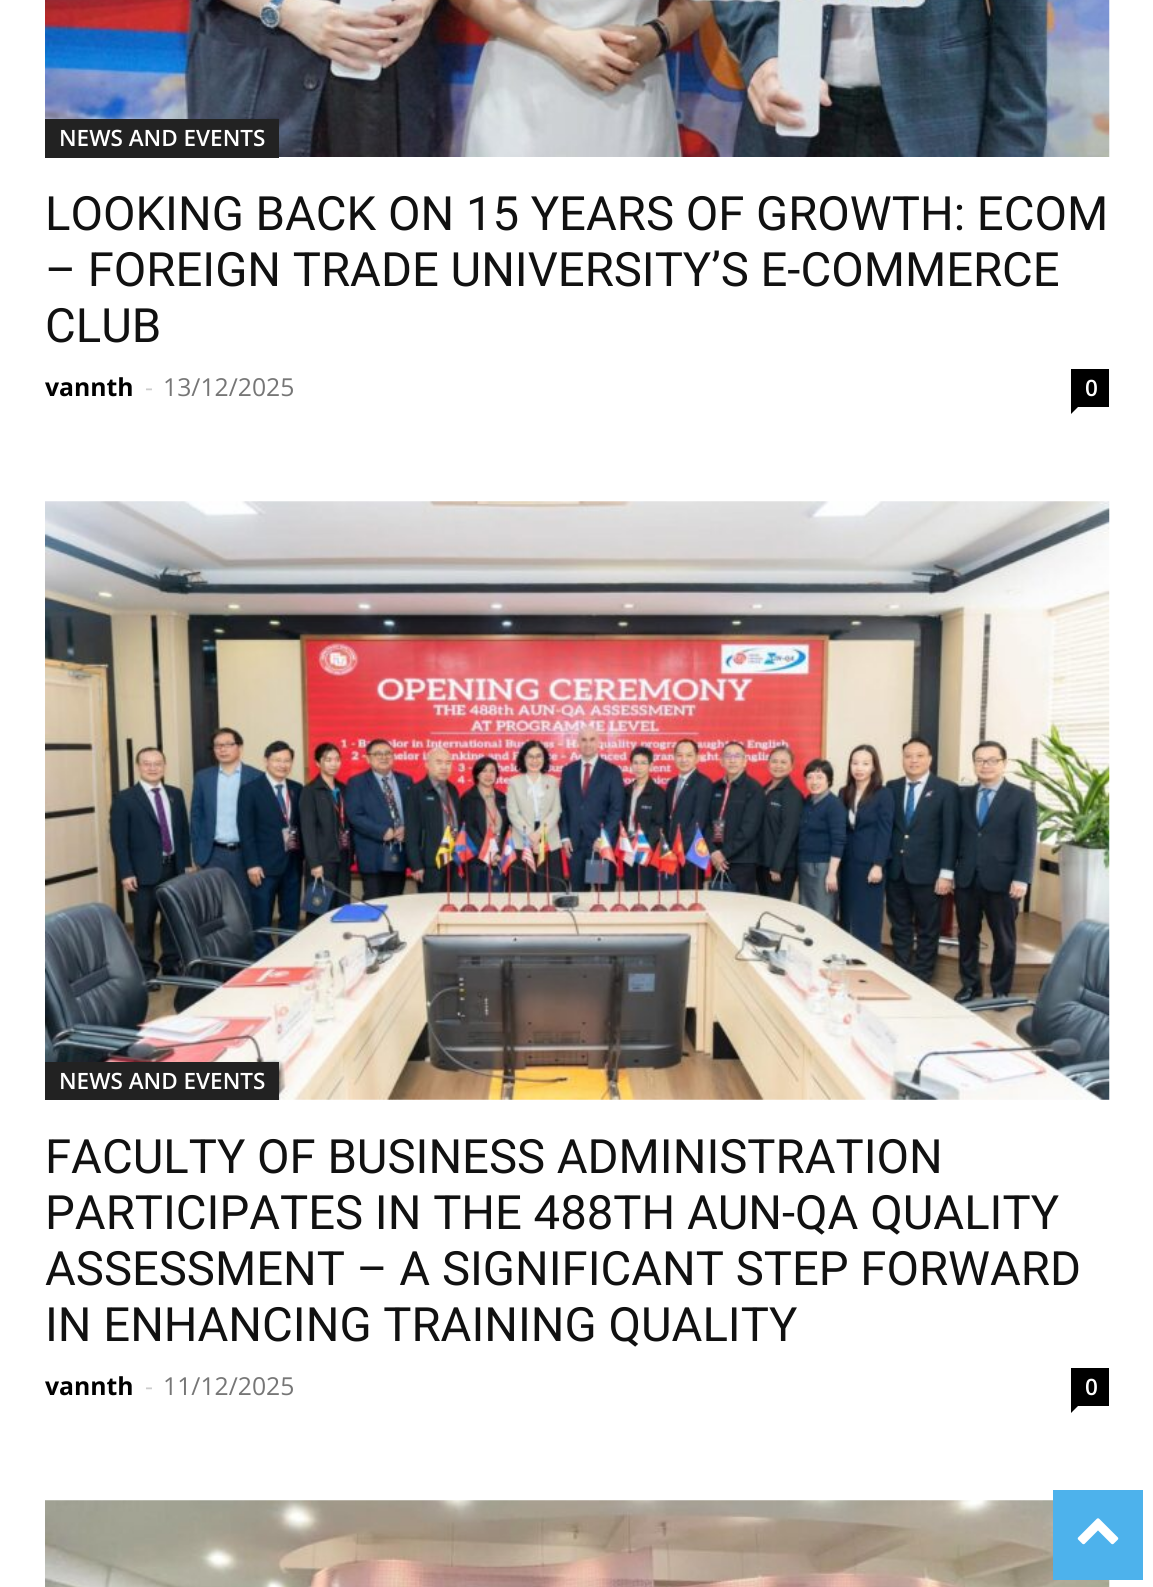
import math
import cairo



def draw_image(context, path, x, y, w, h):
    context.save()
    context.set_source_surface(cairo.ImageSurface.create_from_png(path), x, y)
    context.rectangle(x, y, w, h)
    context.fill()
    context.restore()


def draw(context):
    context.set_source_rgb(1, 1, 1)
    context.paint()
    draw_image(context, "images/1.png", 45, 0, 1065, 157)
    context.set_source_rgb(34 / 255, 34 / 255, 34 / 255)
    context.rectangle(45, 119, 234, 39)
    context.fill()
    context.set_source_rgb(0, 0, 0)
    context.rectangle(1071, 369, 38, 38)
    context.fill()
    context.new_path()
    context.move_to(1071, 407)
    context.line_to(1078, 407)
    context.line_to(1071, 414)
    context.close_path()
    context.fill()
    draw_image(context, "images/2.png", 45, 501, 1065, 599)
    context.set_source_rgb(34 / 255, 34 / 255, 34 / 255)
    context.rectangle(45, 1062, 234, 38)
    context.fill()
    context.set_source_rgb(0, 0, 0)
    context.rectangle(1071, 1368, 38, 38)
    context.fill()
    context.new_path()
    context.move_to(1071, 1406)
    context.line_to(1078, 1406)
    context.line_to(1071, 1413)
    context.close_path()
    context.fill()
    draw_image(context, "images/3.png", 45, 1500, 1065, 87)
    context.set_source_rgb(77 / 255, 178 / 255, 236 / 255)
    context.rectangle(1053, 1490, 90, 90)
    context.fill()
    draw_image(context, "images/4.png", 1077, 1518, 42, 27)
    context.select_font_face("Open Sans SemiBold")
    context.set_font_size(22.5)
    context.set_source_rgb(1, 1, 1)
    context.move_to(59, 146)
    context.show_text("NEWS AND EVENTS")
    context.select_font_face("Roboto")
    context.set_font_size(47.25)
    context.set_source_rgb(17 / 255, 17 / 255, 17 / 255)
    context.move_to(45, 230)
    context.show_text("LOOKING BACK ON 15 YEARS OF GROWTH: ECOM")
    context.move_to(45, 286)
    context.show_text("– FOREIGN TRADE UNIVERSITY’S E-COMMERCE")
    context.move_to(45, 342)
    context.show_text("CLUB")
    context.select_font_face("Open Sans", cairo.FontSlant.NORMAL, cairo.FontWeight.BOLD)
    context.set_font_size(24.75)
    context.set_source_rgb(0, 0, 0)
    context.move_to(45, 396)
    context.show_text("vannth")
    context.select_font_face("Open Sans")
    context.set_source_rgb(204 / 255, 204 / 255, 204 / 255)
    context.move_to(145, 396)
    context.show_text("-")
    context.set_source_rgb(118 / 255, 118 / 255, 118 / 255)
    context.move_to(163, 396)
    context.show_text("13/12/2025")
    context.select_font_face("Open Sans SemiBold")
    context.set_font_size(22.5)
    context.set_source_rgb(1, 1, 1)
    context.move_to(1085, 396)
    context.show_text("0")
    context.move_to(59, 1089)
    context.show_text("NEWS AND EVENTS")
    context.select_font_face("Roboto")
    context.set_font_size(47.25)
    context.set_source_rgb(17 / 255, 17 / 255, 17 / 255)
    context.move_to(45, 1173)
    context.show_text("FACULTY OF BUSINESS ADMINISTRATION")
    context.move_to(45, 1229)
    context.show_text("PARTICIPATES IN THE 488TH AUN-QA QUALITY")
    context.move_to(45, 1285)
    context.show_text("ASSESSMENT – A SIGNIFICANT STEP FORWARD")
    context.move_to(45, 1341)
    context.show_text("IN ENHANCING TRAINING QUALITY")
    context.select_font_face("Open Sans", cairo.FontSlant.NORMAL, cairo.FontWeight.BOLD)
    context.set_font_size(24.75)
    context.set_source_rgb(0, 0, 0)
    context.move_to(45, 1395)
    context.show_text("vannth")
    context.select_font_face("Open Sans")
    context.set_source_rgb(204 / 255, 204 / 255, 204 / 255)
    context.move_to(145, 1395)
    context.show_text("-")
    context.set_source_rgb(118 / 255, 118 / 255, 118 / 255)
    context.move_to(163, 1395)
    context.show_text("11/12/2025")
    context.select_font_face("Open Sans SemiBold")
    context.set_font_size(22.5)
    context.set_source_rgb(1, 1, 1)
    context.move_to(1085, 1395)
    context.show_text("0")


surface = cairo.ImageSurface(cairo.Format.RGB24, 1153, 1587)
context = cairo.Context(surface)
options = cairo.FontOptions()
options.set_hint_metrics(cairo.HintMetrics.OFF)
options.set_hint_style(cairo.HintStyle.NONE)
context.set_font_options(options)
context.set_miter_limit(4)
draw(context)
surface.write_to_png("out.png")
